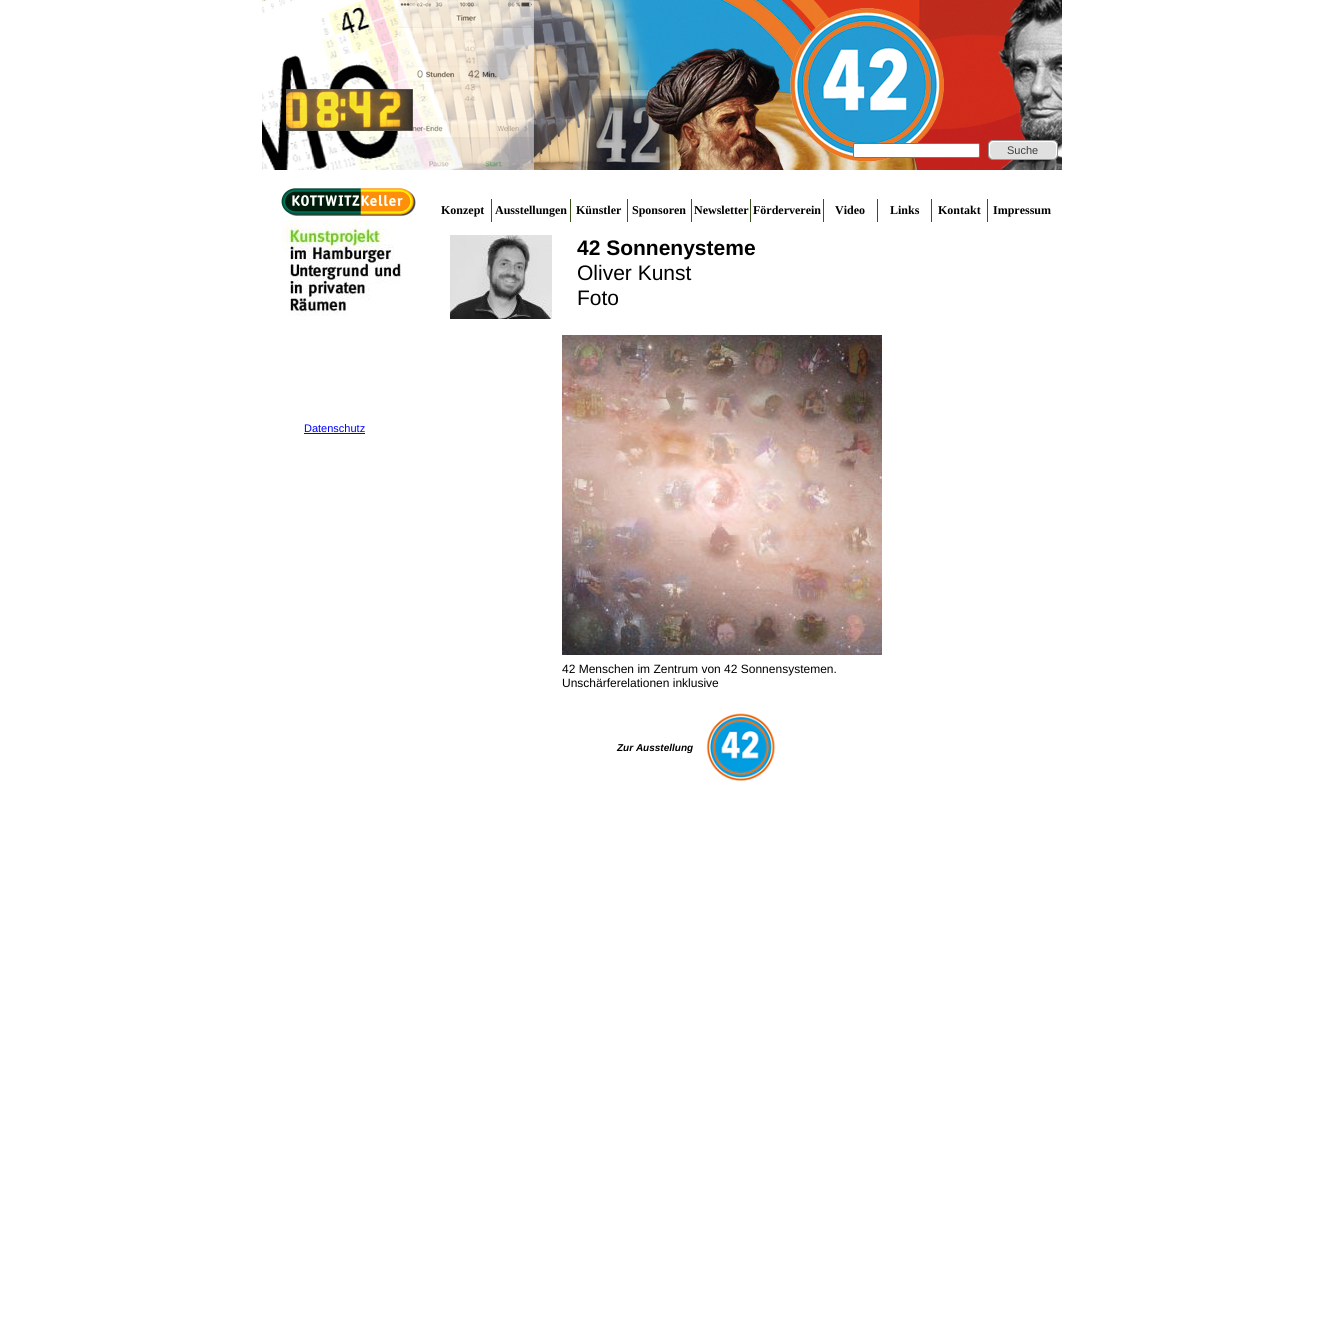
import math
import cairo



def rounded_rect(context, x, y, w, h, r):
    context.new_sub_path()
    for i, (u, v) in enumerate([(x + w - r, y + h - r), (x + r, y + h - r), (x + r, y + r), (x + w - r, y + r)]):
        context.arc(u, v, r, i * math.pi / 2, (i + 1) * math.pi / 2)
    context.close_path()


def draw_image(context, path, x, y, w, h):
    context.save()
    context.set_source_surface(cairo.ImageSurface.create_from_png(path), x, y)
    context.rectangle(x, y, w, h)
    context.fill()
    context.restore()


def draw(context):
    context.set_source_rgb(1, 1, 1)
    context.paint()
    draw_image(context, "images/1.png", 262, 0, 800, 170)
    context.set_source_rgb(1, 1, 1)
    rounded_rect(context, 853.5, 143.5, 126, 14, 1.5)
    context.fill_preserve()
    context.set_source_rgb(118 / 255, 118 / 255, 118 / 255)
    context.set_line_width(1)
    context.stroke()
    context.set_source_rgb(224 / 255, 224 / 255, 224 / 255)
    rounded_rect(context, 988.5, 140.5, 69, 19, 4.5)
    context.fill_preserve()
    context.set_source_rgb(149 / 255, 149 / 255, 149 / 255)
    context.stroke()
    context.set_source_rgb(1, 1, 1)
    context.set_fill_rule(cairo.FillRule.EVEN_ODD)
    context.new_path()
    context.move_to(994, 141)
    context.line_to(1052, 141)
    context.curve_to(1055, 141, 1057, 143, 1057, 146)
    context.line_to(1057, 153)
    context.curve_to(1057, 156, 1055, 158, 1052, 158)
    context.line_to(994, 158)
    context.curve_to(991, 158, 989, 156, 989, 153)
    context.line_to(989, 146)
    context.curve_to(989, 143, 991, 141, 994, 141)
    context.close_path()
    context.move_to(994, 142)
    context.line_to(1052, 142)
    context.curve_to(1054, 142, 1056, 144, 1056, 146)
    context.line_to(1056, 153)
    context.curve_to(1056, 156, 1054, 158, 1052, 158)
    context.line_to(994, 158)
    context.curve_to(992, 158, 990, 156, 990, 153)
    context.line_to(990, 146)
    context.curve_to(990, 144, 992, 142, 994, 142)
    context.close_path()
    context.fill()
    draw_image(context, "images/2.png", 281, 188, 135, 28)
    context.set_source_rgb(56 / 255, 82 / 255, 26 / 255)
    context.rectangle(491, 199, 1, 23)
    context.fill()
    context.rectangle(570, 199, 1, 23)
    context.fill()
    context.rectangle(627, 199, 1, 23)
    context.fill()
    context.rectangle(691, 199, 1, 23)
    context.fill()
    context.rectangle(750, 199, 1, 23)
    context.fill()
    context.rectangle(823, 199, 1, 23)
    context.fill()
    context.rectangle(877, 199, 1, 23)
    context.fill()
    context.rectangle(931, 199, 1, 23)
    context.fill()
    context.rectangle(987, 199, 1, 23)
    context.fill()
    draw_image(context, "images/3.png", 282, 220, 120, 96)
    draw_image(context, "images/4.png", 450, 235, 102, 84)
    context.set_source_rgb(0, 0, 1)
    context.rectangle(304, 433, 61, 1)
    context.fill()
    draw_image(context, "images/5.png", 562, 335, 320, 320)
    draw_image(context, "images/6.png", 706, 713, 70, 68)
    context.select_font_face("Liberation Sans")
    context.set_font_size(11)
    context.set_source_rgb(61 / 255, 61 / 255, 61 / 255)
    context.move_to(1007, 154)
    context.show_text("Suche")
    context.select_font_face("Liberation Serif", cairo.FontSlant.NORMAL, cairo.FontWeight.BOLD)
    context.set_font_size(12)
    context.set_source_rgb(0, 0, 0)
    context.move_to(441, 214)
    context.show_text("Konzept")
    context.move_to(495, 214)
    context.show_text("Ausstellungen")
    context.move_to(576, 214)
    context.show_text("Künstler")
    context.move_to(632, 214)
    context.show_text("Sponsoren")
    context.move_to(694, 214)
    context.show_text("Newsletter")
    context.move_to(753, 214)
    context.show_text("Förderverein")
    context.move_to(835, 214)
    context.show_text("Video")
    context.move_to(890, 214)
    context.show_text("Links")
    context.move_to(938, 214)
    context.show_text("Kontakt")
    context.move_to(993, 214)
    context.show_text("Impressum")
    context.select_font_face("Liberation Sans", cairo.FontSlant.NORMAL, cairo.FontWeight.BOLD)
    context.set_font_size(21)
    context.move_to(577, 255)
    context.show_text("42 Sonnenysteme")
    context.select_font_face("Liberation Sans")
    context.move_to(577, 280)
    context.show_text("Oliver Kunst")
    context.move_to(577, 305)
    context.show_text("Foto")
    context.set_font_size(11)
    context.set_source_rgb(0, 0, 1)
    context.move_to(304, 432)
    context.show_text("Datenschutz")
    context.set_font_size(12)
    context.set_source_rgb(0, 0, 0)
    context.move_to(562, 673)
    context.show_text("42 Menschen im Zentrum von 42 Sonnensystemen.")
    context.move_to(562, 687)
    context.show_text("Unschärferelationen inklusive")
    context.select_font_face("Liberation Sans", cairo.FontSlant.ITALIC, cairo.FontWeight.BOLD)
    context.set_font_size(10)
    context.move_to(617, 751)
    context.show_text("Zur Ausstellung")


surface = cairo.ImageSurface(cairo.Format.RGB24, 1324, 1337)
context = cairo.Context(surface)
options = cairo.FontOptions()
options.set_hint_metrics(cairo.HintMetrics.OFF)
options.set_hint_style(cairo.HintStyle.NONE)
context.set_font_options(options)
context.set_miter_limit(4)
draw(context)
surface.write_to_png("out.png")
